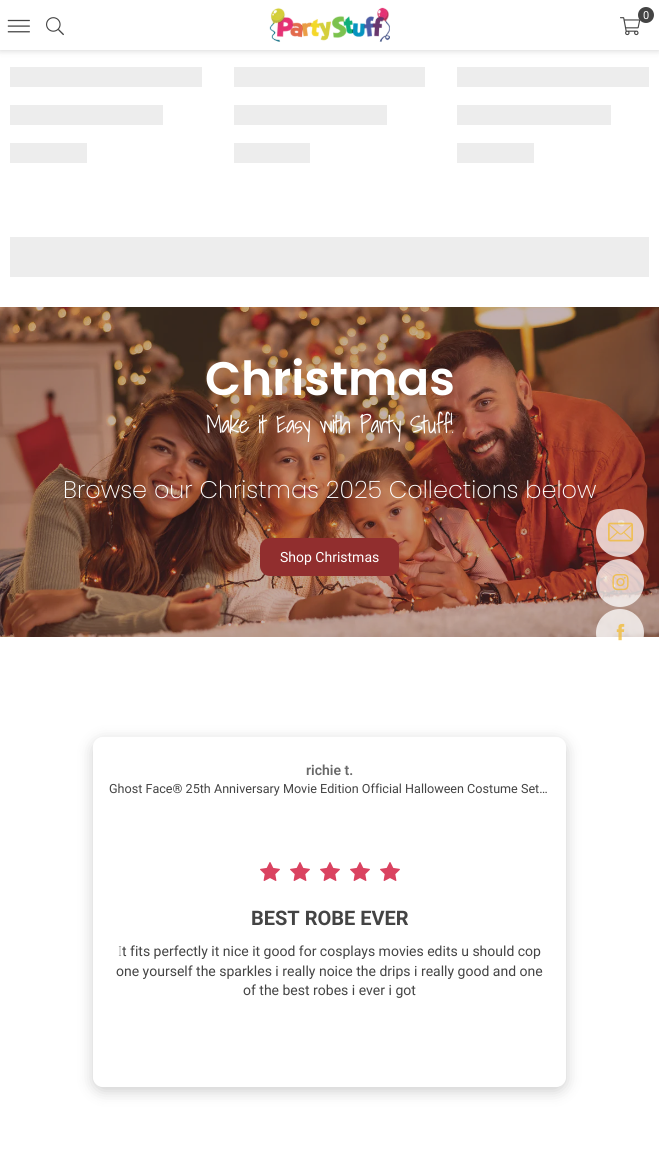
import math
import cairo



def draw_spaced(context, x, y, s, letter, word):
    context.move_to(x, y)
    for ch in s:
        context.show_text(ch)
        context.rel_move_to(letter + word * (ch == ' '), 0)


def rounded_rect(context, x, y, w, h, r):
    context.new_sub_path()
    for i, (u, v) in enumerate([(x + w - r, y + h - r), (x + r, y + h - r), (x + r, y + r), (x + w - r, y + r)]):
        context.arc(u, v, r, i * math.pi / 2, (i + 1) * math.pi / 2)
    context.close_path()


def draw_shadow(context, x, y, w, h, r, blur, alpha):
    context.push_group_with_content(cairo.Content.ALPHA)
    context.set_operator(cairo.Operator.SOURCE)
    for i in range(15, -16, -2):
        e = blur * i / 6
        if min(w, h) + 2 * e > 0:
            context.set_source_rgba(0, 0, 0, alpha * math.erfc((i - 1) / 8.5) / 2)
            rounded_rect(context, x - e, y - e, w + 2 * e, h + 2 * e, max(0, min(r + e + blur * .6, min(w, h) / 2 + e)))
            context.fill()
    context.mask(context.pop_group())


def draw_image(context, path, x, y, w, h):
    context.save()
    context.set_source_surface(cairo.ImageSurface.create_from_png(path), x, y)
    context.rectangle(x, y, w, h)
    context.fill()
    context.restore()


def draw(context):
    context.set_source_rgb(1, 1, 1)
    context.paint()
    context.set_source_rgb(0, 0, 0)
    draw_shadow(context, 0, 0, 659, 50, 0, 3.5, 0.2)
    context.set_source_rgb(1, 1, 1)
    context.rectangle(0, 0, 659, 50)
    context.fill()
    draw_image(context, "images/1.png", 269, 7, 121, 35)
    draw_image(context, "images/2.png", 620, 17, 21, 19)
    context.set_source_rgb(68 / 255, 68 / 255, 68 / 255)
    context.arc(646, 15, 8, 0, 2 * math.pi)
    context.fill()
    draw_image(context, "images/3.png", 7, 19, 23, 14)
    draw_image(context, "images/4.png", 46, 17, 18, 19)
    context.set_source_rgb(237 / 255, 237 / 255, 237 / 255)
    context.rectangle(10, 67, 192, 20)
    context.fill()
    context.rectangle(10, 105, 153, 20)
    context.fill()
    context.rectangle(10, 143, 77, 20)
    context.fill()
    context.rectangle(234, 67, 191, 20)
    context.fill()
    context.rectangle(234, 105, 153, 20)
    context.fill()
    context.rectangle(234, 143, 76, 20)
    context.fill()
    context.rectangle(457, 67, 192, 20)
    context.fill()
    context.rectangle(457, 105, 154, 20)
    context.fill()
    context.rectangle(457, 143, 77, 20)
    context.fill()
    context.rectangle(10, 237, 639, 40)
    context.fill()
    draw_image(context, "images/5.png", 0, 307, 659, 330)
    context.set_source_rgb(145 / 255, 46 / 255, 46 / 255)
    rounded_rect(context, 260, 538, 139, 38, 10)
    context.fill()
    context.set_source_rgba(1, 1, 1, 0.75)
    context.arc(620, 533, 24, 0, 2 * math.pi)
    context.fill()
    draw_image(context, "images/6.png", 608, 522, 25, 20)
    context.arc(620, 583, 24, 0, 2 * math.pi)
    context.fill()
    draw_image(context, "images/7.png", 612, 574, 17, 17)
    context.arc(620, 633, 24, 0, 2 * math.pi)
    context.fill()
    draw_image(context, "images/8.png", 616, 623, 9, 18)
    context.save()
    context.set_fill_rule(cairo.FillRule.EVEN_ODD)
    context.new_path()
    context.move_to(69, 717)
    context.line_to(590, 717)
    context.line_to(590, 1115)
    context.line_to(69, 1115)
    context.close_path()
    context.move_to(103, 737)
    context.line_to(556, 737)
    context.curve_to(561.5, 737, 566, 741.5, 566, 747)
    context.line_to(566, 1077)
    context.curve_to(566, 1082.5, 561.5, 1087, 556, 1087)
    context.line_to(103, 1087)
    context.curve_to(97.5, 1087, 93, 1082.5, 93, 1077)
    context.line_to(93, 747)
    context.curve_to(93, 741.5, 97.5, 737, 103, 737)
    context.close_path()
    context.clip()
    context.set_source_rgb(0, 0, 0)
    draw_shadow(context, 93, 741, 473, 350, 10, 7.5, 0.2)
    context.restore()
    draw_image(context, "images/9.png", 260, 862, 20, 19)
    draw_image(context, "images/9.png", 290, 862, 20, 19)
    draw_image(context, "images/9.png", 320, 862, 20, 19)
    draw_image(context, "images/9.png", 350, 862, 20, 19)
    draw_image(context, "images/9.png", 380, 862, 20, 19)
    context.select_font_face("Roboto")
    context.set_font_size(11)
    context.set_source_rgb(1, 1, 1)
    context.move_to(643, 19)
    context.show_text("0")
    context.select_font_face("Poppins SemiBold")
    context.set_font_size(47)
    context.move_to(205, 395)
    context.show_text("Christmas")
    context.select_font_face("Shadows Into Light Light")
    context.set_font_size(24)
    draw_spaced(context, 206, 433, "Make it Easy with Party Stuff!", -1, 0)
    context.select_font_face("Poppins ExtraLight")
    context.move_to(63, 498)
    context.show_text("Browse our Christmas 2025 Collections below")
    context.select_font_face("Roboto")
    context.set_font_size(14)
    context.move_to(280, 562)
    context.show_text("Shop Christmas")
    context.select_font_face("Roboto SemiBold")
    context.set_source_rgb(105 / 255, 105 / 255, 105 / 255)
    context.move_to(306, 775)
    context.show_text("richie t.")
    context.select_font_face("Roboto")
    context.set_font_size(12.6)
    context.set_source_rgb(68 / 255, 68 / 255, 68 / 255)
    context.move_to(109, 793)
    context.show_text("Ghost Face® 25th Anniversary Movie Edition Official Halloween Costume Set…")
    context.select_font_face("Roboto", cairo.FontSlant.NORMAL, cairo.FontWeight.BOLD)
    context.set_font_size(20)
    context.move_to(251, 925)
    context.show_text("BEST ROBE EVER")
    context.select_font_face("Roboto")
    context.set_font_size(14)
    context.move_to(116, 976)
    context.show_text("one yourself the sparkles i really noice the drips i really good and one")
    context.move_to(243, 995)
    context.show_text("of the best robes i ever i got")
    context.select_font_face("Noto Sans Thin")
    context.move_to(118, 956)
    context.show_text("I")
    context.select_font_face("Roboto")
    context.move_to(122, 956)
    context.show_text("t fits perfectly it nice it good for cosplays movies edits u should cop")


surface = cairo.ImageSurface(cairo.Format.RGB24, 659, 1167)
context = cairo.Context(surface)
options = cairo.FontOptions()
options.set_hint_metrics(cairo.HintMetrics.OFF)
options.set_hint_style(cairo.HintStyle.NONE)
context.set_font_options(options)
context.set_miter_limit(4)
draw(context)
surface.write_to_png("out.png")
